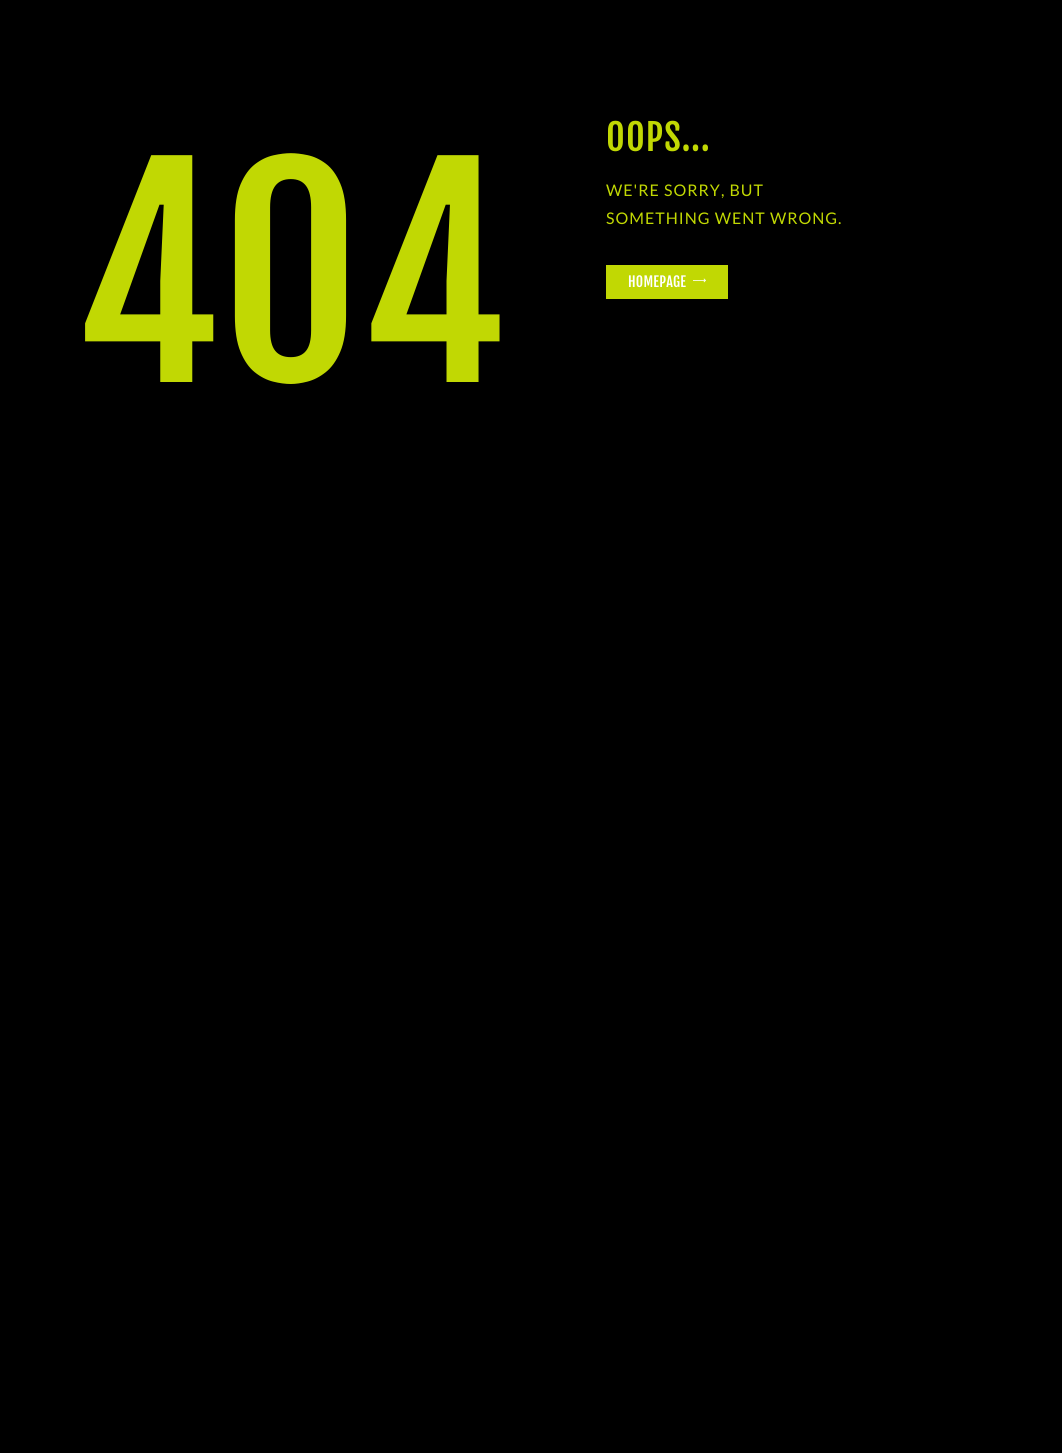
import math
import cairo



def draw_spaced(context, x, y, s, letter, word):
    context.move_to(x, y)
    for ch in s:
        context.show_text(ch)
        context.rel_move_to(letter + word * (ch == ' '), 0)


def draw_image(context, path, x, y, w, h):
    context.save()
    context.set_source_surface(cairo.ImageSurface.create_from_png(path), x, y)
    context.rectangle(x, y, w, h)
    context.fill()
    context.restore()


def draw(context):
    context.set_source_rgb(0, 0, 0)
    context.paint()
    context.set_source_rgb(193 / 255, 216 / 255, 3 / 255)
    context.rectangle(606, 265, 122, 34)
    context.fill()
    draw_image(context, "images/1.png", 693, 278, 13, 5)
    context.select_font_face("Fjalla One")
    context.set_font_size(272)
    context.move_to(75, 382)
    context.show_text("404")
    context.set_font_size(36)
    draw_spaced(context, 606, 151, "OOPS...", 1, 0)
    context.select_font_face("Lato")
    context.set_font_size(16)
    draw_spaced(context, 606, 196, "WE'RE SORRY, BUT", 1, 0)
    draw_spaced(context, 606, 224, "SOMETHING WENT WRONG.", 1, 0)
    context.select_font_face("Fjalla One")
    context.set_font_size(14)
    context.set_source_rgb(1, 1, 1)
    draw_spaced(context, 628, 287, "HOMEPAGE", 0.25, 0)


surface = cairo.ImageSurface(cairo.Format.RGB24, 1062, 1453)
context = cairo.Context(surface)
options = cairo.FontOptions()
options.set_hint_metrics(cairo.HintMetrics.OFF)
options.set_hint_style(cairo.HintStyle.NONE)
context.set_font_options(options)
context.set_miter_limit(4)
draw(context)
surface.write_to_png("out.png")
